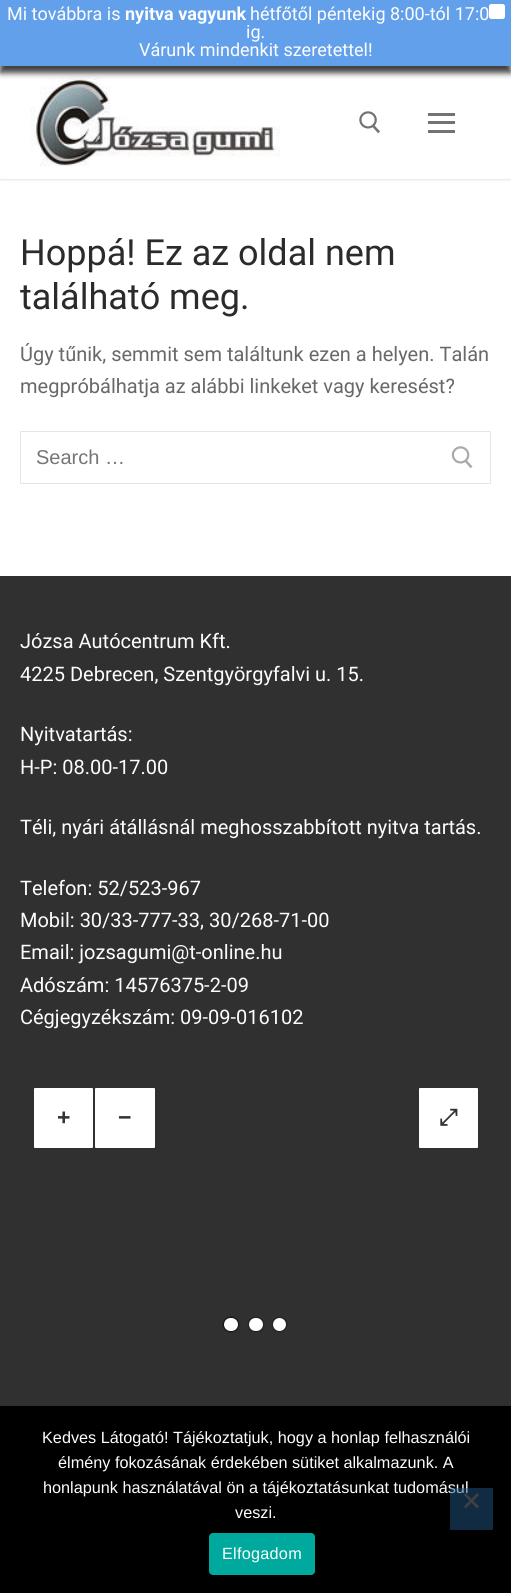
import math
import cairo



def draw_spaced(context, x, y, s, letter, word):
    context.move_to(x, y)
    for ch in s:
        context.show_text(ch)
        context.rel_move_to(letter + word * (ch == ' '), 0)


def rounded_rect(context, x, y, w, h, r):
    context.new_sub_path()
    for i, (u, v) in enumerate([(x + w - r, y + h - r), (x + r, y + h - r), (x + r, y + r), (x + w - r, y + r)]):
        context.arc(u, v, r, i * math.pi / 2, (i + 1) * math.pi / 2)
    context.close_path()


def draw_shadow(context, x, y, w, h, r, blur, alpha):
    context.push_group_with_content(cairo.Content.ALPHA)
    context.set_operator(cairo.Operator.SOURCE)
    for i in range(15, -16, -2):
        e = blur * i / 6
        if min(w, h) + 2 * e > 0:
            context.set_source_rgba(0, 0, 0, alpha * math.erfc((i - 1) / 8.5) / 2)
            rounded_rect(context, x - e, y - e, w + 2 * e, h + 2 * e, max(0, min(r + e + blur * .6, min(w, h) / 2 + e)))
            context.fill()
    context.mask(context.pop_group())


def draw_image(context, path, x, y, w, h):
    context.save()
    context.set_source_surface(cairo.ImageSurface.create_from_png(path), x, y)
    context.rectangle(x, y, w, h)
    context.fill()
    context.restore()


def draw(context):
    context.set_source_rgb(1, 1, 1)
    context.paint()
    context.set_source_rgb(225 / 255, 229 / 255, 234 / 255)
    draw_shadow(context, 0, 68, 511, 112, 0, 1, 1)
    context.set_source_rgb(1, 1, 1)
    context.rectangle(0, 67, 511, 112)
    context.fill()
    draw_image(context, "images/1.png", 30, 76, 250, 91)
    context.set_source_rgb(0, 0, 0)
    draw_shadow(context, 0, 6, 511, 67, 0, 3, 0.75)
    context.set_source_rgb(99 / 255, 160 / 255, 235 / 255)
    context.rectangle(0, 0, 511, 66)
    context.fill()
    context.set_source_rgb(1, 1, 1)
    rounded_rect(context, 489.5, 4.5, 15, 14, 2)
    context.fill_preserve()
    context.set_line_width(1)
    context.stroke()
    draw_image(context, "images/2.png", 359, 111, 21, 23)
    context.set_source_rgb(115 / 255, 115 / 255, 115 / 255)
    context.rectangle(428, 121, 27, 3)
    context.fill()
    context.rectangle(428, 113, 27, 3)
    context.fill()
    context.rectangle(428, 130, 27, 3)
    context.fill()
    rounded_rect(context, 20.5, 431.5, 470, 52, 0.5)
    context.set_source_rgb(229 / 255, 229 / 255, 229 / 255)
    context.stroke()
    draw_image(context, "images/3.png", 451, 446, 22, 23)
    context.set_source_rgb(48 / 255, 48 / 255, 48 / 255)
    context.rectangle(0, 576, 511, 830)
    context.fill()
    context.set_source_rgb(1, 1, 1)
    rounded_rect(context, 34, 1088, 59, 60, 1)
    context.fill()
    rounded_rect(context, 95, 1088, 60, 60, 1)
    context.fill()
    rounded_rect(context, 419, 1088, 59, 60, 1)
    context.fill()
    context.set_source_rgb(0, 0, 0)
    draw_shadow(context, 224, 1318, 14, 13, 6.5, 1, 1)
    draw_shadow(context, 224, 1318, 14, 13, 6.5, 1, 1)
    context.set_source_rgb(1, 1, 1)
    rounded_rect(context, 224, 1318, 14, 13, 6.5)
    context.fill()
    context.set_source_rgb(0, 0, 0)
    draw_shadow(context, 249, 1318, 14, 13, 6.5, 1, 1)
    context.set_source_rgb(1, 1, 1)
    rounded_rect(context, 249, 1318, 14, 13, 6.5)
    context.fill()
    context.set_source_rgb(0, 0, 0)
    draw_shadow(context, 273, 1318, 13, 13, 6.5, 1, 1)
    context.set_source_rgb(1, 1, 1)
    context.arc(279.5, 1324.5, 6.5, 0, 2 * math.pi)
    context.fill()
    context.set_source_rgb(0, 0, 0)
    context.rectangle(0, 1406, 511, 187)
    context.fill()
    context.set_source_rgb(0, 169 / 255, 157 / 255)
    rounded_rect(context, 209, 1533, 106, 42, 4)
    context.fill()
    context.select_font_face("Roboto")
    context.set_font_size(18)
    context.set_source_rgb(253 / 255, 253 / 255, 253 / 255)
    context.move_to(7, 20)
    context.show_text("Mi továbbra is")
    context.select_font_face("Roboto", cairo.FontSlant.NORMAL, cairo.FontWeight.BOLD)
    context.move_to(125, 20)
    context.show_text("nyitva vagyunk")
    context.select_font_face("Roboto")
    context.move_to(250, 20)
    context.show_text("hétfőtől péntekig 8:00-tól 17:0")
    context.move_to(246, 38)
    context.show_text("ig.")
    context.move_to(139, 56)
    context.show_text("Várunk mindenkit szeretettel!")
    context.set_font_size(36)
    context.set_source_rgb(43 / 255, 43 / 255, 43 / 255)
    context.move_to(20, 265)
    context.show_text("Hoppá! Ez az oldal nem")
    context.move_to(20, 309)
    context.show_text("található meg.")
    context.set_font_size(20)
    context.set_source_rgb(104 / 255, 104 / 255, 104 / 255)
    context.move_to(20, 361)
    context.show_text("Úgy tűnik, semmit sem találtunk ezen a helyen. Talán")
    context.move_to(20, 393)
    context.show_text("megpróbálhatja az alábbi linkeket vagy keresést?")
    context.select_font_face("Liberation Sans")
    context.set_source_rgb(117 / 255, 117 / 255, 117 / 255)
    context.move_to(36, 464)
    context.show_text("Search …")
    context.select_font_face("Roboto")
    context.set_source_rgb(253 / 255, 253 / 255, 253 / 255)
    context.move_to(20, 648)
    context.show_text("Józsa Autócentrum Kft.")
    context.move_to(20, 681)
    context.show_text("4225 Debrecen, Szentgyörgyfalvi u. 15.")
    context.move_to(20, 741)
    context.show_text("Nyitvatartás:")
    context.move_to(20, 774)
    context.show_text("H-P: 08.00-17.00")
    context.move_to(20, 834)
    context.show_text("Téli, nyári átállásnál meghosszabbított nyitva tartás.")
    context.move_to(20, 895)
    context.show_text("Telefon: 52/523-967")
    context.move_to(20, 927)
    context.show_text("Mobil: 30/33-777-33, 30/268-71-00")
    context.move_to(20, 959)
    context.show_text("Email: jozsagumi@t-online.hu")
    context.move_to(20, 992)
    context.show_text("Adószám: 14576375-2-09")
    context.move_to(20, 1024)
    context.show_text("Cégjegyzékszám: 09-09-016102")
    context.select_font_face("Liberation Sans", cairo.FontSlant.NORMAL, cairo.FontWeight.BOLD)
    context.set_font_size(23)
    context.set_source_rgb(51 / 255, 51 / 255, 51 / 255)
    context.move_to(57, 1125)
    context.show_text("+")
    context.move_to(118, 1125)
    context.show_text("−")
    context.select_font_face("FreeSerif", cairo.FontSlant.NORMAL, cairo.FontWeight.BOLD)
    context.move_to(439, 1125)
    context.show_text("⤢")
    context.select_font_face("Liberation Sans")
    context.set_font_size(16.25)
    context.set_source_rgb(253 / 255, 253 / 255, 253 / 255)
    context.move_to(42, 1443)
    context.show_text("Kedves Látogató! Tájékoztatjuk, hogy a honlap felhasználói")
    context.move_to(58, 1468)
    context.show_text("élmény fokozásának érdekében sütiket alkalmazunk. A")
    context.move_to(43, 1493)
    context.show_text("honlapunk használatával ön a tájékoztatásunkat tudomásul")
    context.move_to(235, 1518)
    context.show_text("veszi.")
    context.set_source_rgba(35 / 255, 87 / 255, 135 / 255, 0.5)
    rounded_rect(context, 450, 1488, 43, 42, 1)
    context.fill()
    context.set_source_rgb(64 / 255, 64 / 255, 64 / 255)
    context.new_path()
    context.move_to(477, 1493)
    context.line_to(479, 1495)
    context.line_to(465.5, 1508.5)
    context.line_to(464, 1506.5)
    context.close_path()
    context.fill()
    context.new_path()
    context.move_to(464, 1495)
    context.line_to(465.5, 1493)
    context.line_to(479, 1506.5)
    context.line_to(477, 1508.5)
    context.close_path()
    context.fill()
    context.set_source_rgb(253 / 255, 253 / 255, 253 / 255)
    draw_spaced(context, 222, 1559, "Elfogadom", 0.25, 0)


surface = cairo.ImageSurface(cairo.Format.RGB24, 511, 1593)
context = cairo.Context(surface)
options = cairo.FontOptions()
options.set_hint_metrics(cairo.HintMetrics.OFF)
options.set_hint_style(cairo.HintStyle.NONE)
context.set_font_options(options)
context.set_miter_limit(4)
draw(context)
surface.write_to_png("out.png")
